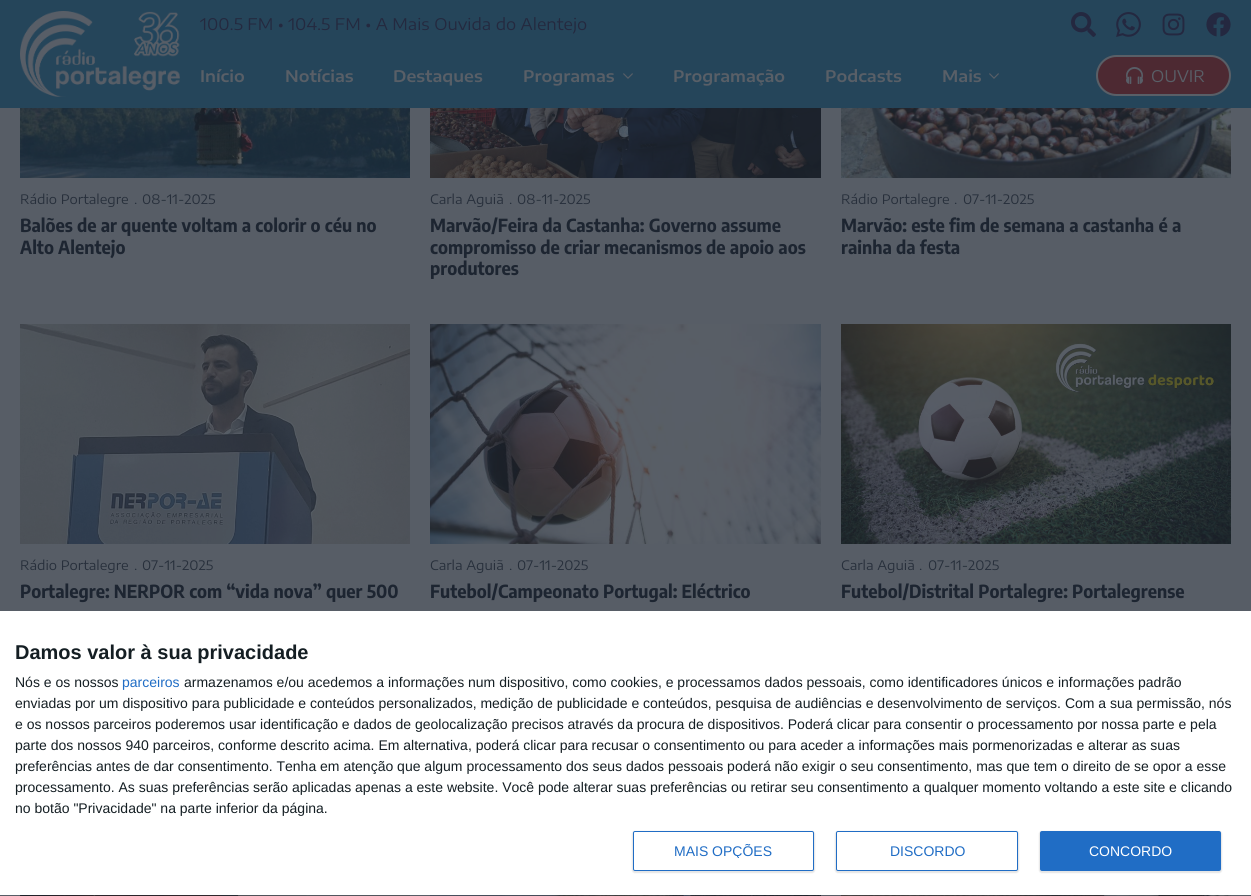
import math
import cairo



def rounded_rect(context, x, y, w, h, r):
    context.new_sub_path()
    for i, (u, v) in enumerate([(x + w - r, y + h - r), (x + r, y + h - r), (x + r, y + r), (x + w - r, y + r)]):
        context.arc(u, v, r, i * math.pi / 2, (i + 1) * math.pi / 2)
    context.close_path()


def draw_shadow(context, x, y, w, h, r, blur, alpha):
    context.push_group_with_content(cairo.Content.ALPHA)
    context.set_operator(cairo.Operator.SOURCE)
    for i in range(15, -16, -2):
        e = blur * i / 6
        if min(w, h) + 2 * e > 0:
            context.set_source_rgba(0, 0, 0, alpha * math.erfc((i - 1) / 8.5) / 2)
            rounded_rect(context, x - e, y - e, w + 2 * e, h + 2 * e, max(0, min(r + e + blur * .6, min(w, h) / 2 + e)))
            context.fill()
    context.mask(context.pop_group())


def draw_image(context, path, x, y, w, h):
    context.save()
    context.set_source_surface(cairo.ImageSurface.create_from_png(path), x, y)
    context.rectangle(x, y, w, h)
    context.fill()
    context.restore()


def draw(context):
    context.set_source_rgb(87 / 255, 93 / 255, 102 / 255)
    context.paint()
    context.set_source_rgb(37 / 255, 69 / 255, 90 / 255)
    context.rectangle(0, 0, 1251, 108)
    context.fill()
    draw_image(context, "images/1.png", 20, 11, 160, 86)
    draw_image(context, "images/2.png", 1071, 12, 25, 25)
    draw_image(context, "images/3.png", 1116, 12, 25, 25)
    draw_image(context, "images/4.png", 1162, 13, 23, 23)
    draw_image(context, "images/5.png", 1206, 12, 25, 25)
    draw_image(context, "images/6.png", 623, 73, 10, 6)
    draw_image(context, "images/6.png", 989, 73, 10, 6)
    context.set_source_rgb(77 / 255, 41 / 255, 50 / 255)
    rounded_rect(context, 1097, 56, 133, 39, 19.5)
    context.fill_preserve()
    context.set_source_rgb(89 / 255, 95 / 255, 103 / 255)
    context.stroke()
    draw_image(context, "images/7.png", 1126, 67, 17, 17)
    draw_image(context, "images/8.png", 20, 108, 390, 70)
    draw_image(context, "images/9.png", 430, 108, 391, 70)
    draw_image(context, "images/10.png", 841, 108, 390, 70)
    draw_image(context, "images/11.png", 20, 324, 390, 220)
    draw_image(context, "images/12.png", 430, 324, 391, 220)
    draw_image(context, "images/13.png", 841, 324, 390, 220)
    draw_image(context, "images/14.png", 20, 895, 390, 1)
    draw_image(context, "images/15.png", 430, 895, 391, 1)
    draw_image(context, "images/16.png", 841, 895, 390, 1)
    context.set_source_rgb(1, 1, 1)
    context.rectangle(0, 611, 1251, 284)
    context.fill()
    context.set_source_rgb(0, 0, 0)
    draw_shadow(context, 632, 831, 183, 42, 3, 0.5, 0.1)
    context.set_source_rgb(1, 1, 1)
    rounded_rect(context, 633.5, 831.5, 180, 39, 1.5)
    context.fill_preserve()
    context.set_source_rgb(32 / 255, 109 / 255, 197 / 255)
    context.set_line_width(1)
    context.stroke()
    context.set_source_rgb(0, 0, 0)
    draw_shadow(context, 835, 831, 184, 42, 3, 0.5, 0.1)
    context.set_source_rgb(1, 1, 1)
    rounded_rect(context, 836.5, 831.5, 181, 39, 1.5)
    context.fill_preserve()
    context.set_source_rgb(32 / 255, 109 / 255, 197 / 255)
    context.stroke()
    context.set_source_rgb(0, 0, 0)
    draw_shadow(context, 1039, 831, 183, 42, 3, 0.5, 0.1)
    context.set_source_rgb(32 / 255, 109 / 255, 197 / 255)
    rounded_rect(context, 1040, 831, 181, 40, 2)
    context.fill()
    context.select_font_face("Encode Sans Expanded")
    context.set_font_size(16)
    context.set_source_rgb(36 / 255, 41 / 255, 63 / 255)
    context.move_to(200, 30)
    context.show_text("100.5 FM • 104.5 FM • A Mais Ouvida do Alentejo")
    context.select_font_face("Encode Sans Expanded SemiBold")
    context.set_source_rgb(89 / 255, 95 / 255, 103 / 255)
    context.move_to(200, 82)
    context.show_text("Início")
    context.move_to(285, 82)
    context.show_text("Notícias")
    context.move_to(393, 82)
    context.show_text("Destaques")
    context.move_to(523, 82)
    context.show_text("Programas")
    context.move_to(673, 82)
    context.show_text("Programação")
    context.move_to(825, 82)
    context.show_text("Podcasts")
    context.move_to(942, 82)
    context.show_text("Mais")
    context.select_font_face("Encode Sans Expanded")
    context.move_to(1151, 82)
    context.show_text("OUVIR")
    context.set_font_size(13)
    context.set_source_rgb(39 / 255, 47 / 255, 59 / 255)
    context.move_to(20, 204)
    context.show_text("Rádio Portalegre")
    context.move_to(134, 204)
    context.show_text(".")
    context.move_to(142, 204)
    context.show_text("08-11-2025")
    context.select_font_face("Encode Sans Semi Condensed", cairo.FontSlant.NORMAL, cairo.FontWeight.BOLD)
    context.set_font_size(18)
    context.set_source_rgb(29 / 255, 37 / 255, 49 / 255)
    context.move_to(20, 232)
    context.show_text("Balões de ar quente voltam a colorir o céu no")
    context.move_to(20, 254)
    context.show_text("Alto Alentejo")
    context.select_font_face("Encode Sans Expanded")
    context.set_font_size(13)
    context.set_source_rgb(39 / 255, 47 / 255, 59 / 255)
    context.move_to(430, 204)
    context.show_text("Carla Aguiã")
    context.move_to(509, 204)
    context.show_text(".")
    context.move_to(517, 204)
    context.show_text("08-11-2025")
    context.select_font_face("Encode Sans Semi Condensed", cairo.FontSlant.NORMAL, cairo.FontWeight.BOLD)
    context.set_font_size(18)
    context.set_source_rgb(29 / 255, 37 / 255, 49 / 255)
    context.move_to(430, 232)
    context.show_text("Marvão/Feira da Castanha: Governo assume")
    context.move_to(430, 254)
    context.show_text("compromisso de criar mecanismos de apoio aos")
    context.move_to(430, 275)
    context.show_text("produtores")
    context.select_font_face("Encode Sans Expanded")
    context.set_font_size(13)
    context.set_source_rgb(39 / 255, 47 / 255, 59 / 255)
    context.move_to(841, 204)
    context.show_text("Rádio Portalegre")
    context.move_to(954, 204)
    context.show_text(".")
    context.move_to(963, 204)
    context.show_text("07-11-2025")
    context.select_font_face("Encode Sans Semi Condensed", cairo.FontSlant.NORMAL, cairo.FontWeight.BOLD)
    context.set_font_size(18)
    context.set_source_rgb(29 / 255, 37 / 255, 49 / 255)
    context.move_to(841, 232)
    context.show_text("Marvão: este fim de semana a castanha é a")
    context.move_to(841, 254)
    context.show_text("rainha da festa")
    context.select_font_face("Encode Sans Expanded")
    context.set_font_size(13)
    context.set_source_rgb(39 / 255, 47 / 255, 59 / 255)
    context.move_to(20, 570)
    context.show_text("Rádio Portalegre")
    context.move_to(134, 570)
    context.show_text(".")
    context.move_to(142, 570)
    context.show_text("07-11-2025")
    context.select_font_face("Encode Sans Semi Condensed", cairo.FontSlant.NORMAL, cairo.FontWeight.BOLD)
    context.set_font_size(18)
    context.set_source_rgb(29 / 255, 37 / 255, 49 / 255)
    context.move_to(20, 598)
    context.show_text("Portalegre: NERPOR com “vida nova” quer 500")
    context.select_font_face("Encode Sans Expanded")
    context.set_font_size(13)
    context.set_source_rgb(39 / 255, 47 / 255, 59 / 255)
    context.move_to(430, 570)
    context.show_text("Carla Aguiã")
    context.move_to(509, 570)
    context.show_text(".")
    context.move_to(517, 570)
    context.show_text("07-11-2025")
    context.select_font_face("Encode Sans Semi Condensed", cairo.FontSlant.NORMAL, cairo.FontWeight.BOLD)
    context.set_font_size(18)
    context.set_source_rgb(29 / 255, 37 / 255, 49 / 255)
    context.move_to(430, 598)
    context.show_text("Futebol/Campeonato Portugal: Eléctrico")
    context.select_font_face("Encode Sans Expanded")
    context.set_font_size(13)
    context.set_source_rgb(39 / 255, 47 / 255, 59 / 255)
    context.move_to(841, 570)
    context.show_text("Carla Aguiã")
    context.move_to(919, 570)
    context.show_text(".")
    context.move_to(928, 570)
    context.show_text("07-11-2025")
    context.select_font_face("Encode Sans Semi Condensed", cairo.FontSlant.NORMAL, cairo.FontWeight.BOLD)
    context.set_font_size(18)
    context.set_source_rgb(29 / 255, 37 / 255, 49 / 255)
    context.move_to(841, 598)
    context.show_text("Futebol/Distrital Portalegre: Portalegrense")
    context.select_font_face("Liberation Sans", cairo.FontSlant.NORMAL, cairo.FontWeight.BOLD)
    context.set_font_size(20)
    context.set_source_rgb(20 / 255, 30 / 255, 35 / 255)
    context.move_to(15, 659)
    context.show_text("Damos valor à sua privacidade")
    context.select_font_face("Liberation Sans")
    context.set_font_size(14)
    context.move_to(15, 687)
    context.show_text("Nós e os nossos")
    context.set_source_rgb(32 / 255, 109 / 255, 197 / 255)
    context.move_to(122, 687)
    context.show_text("parceiros")
    context.set_source_rgb(20 / 255, 30 / 255, 35 / 255)
    context.move_to(184, 687)
    context.show_text("armazenamos e/ou acedemos a informações num dispositivo, como cookies, e processamos dados pessoais, como identificadores únicos e informações padrão")
    context.move_to(15, 708)
    context.show_text("enviadas por um dispositivo para publicidade e conteúdos personalizados, medição de publicidade e conteúdos, pesquisa de audiências e desenvolvimento de serviços. Com a sua permissão, nós")
    context.move_to(15, 729)
    context.show_text("e os nossos parceiros poderemos usar identificação e dados de geolocalização precisos através da procura de dispositivos. Poderá clicar para consentir o processamento por nossa parte e pela")
    context.move_to(15, 750)
    context.show_text("parte dos nossos 940 parceiros, conforme descrito acima. Em alternativa, poderá clicar para recusar o consentimento ou para aceder a informações mais pormenorizadas e alterar as suas")
    context.move_to(15, 771)
    context.show_text("preferências antes de dar consentimento. Tenha em atenção que algum processamento dos seus dados pessoais poderá não exigir o seu consentimento, mas que tem o direito de se opor a esse")
    context.move_to(15, 792)
    context.show_text("processamento. As suas preferências serão aplicadas apenas a este website. Você pode alterar suas preferências ou retirar seu consentimento a qualquer momento voltando a este site e clicando")
    context.move_to(15, 813)
    context.show_text("no botão \"Privacidade\" na parte inferior da página.")
    context.save()
    context.rectangle(674, 844, 99, 14)
    context.clip()
    context.set_source_rgb(32 / 255, 109 / 255, 197 / 255)
    context.move_to(674, 856)
    context.show_text("MAIS OPÇÕES")
    context.restore()
    context.set_source_rgb(32 / 255, 109 / 255, 197 / 255)
    context.move_to(890, 856)
    context.show_text("DISCORDO")
    context.set_source_rgb(1, 1, 1)
    context.move_to(1089, 856)
    context.show_text("CONCORDO")


surface = cairo.ImageSurface(cairo.Format.RGB24, 1251, 896)
context = cairo.Context(surface)
options = cairo.FontOptions()
options.set_hint_metrics(cairo.HintMetrics.OFF)
options.set_hint_style(cairo.HintStyle.NONE)
context.set_font_options(options)
context.set_miter_limit(4)
draw(context)
surface.write_to_png("out.png")
